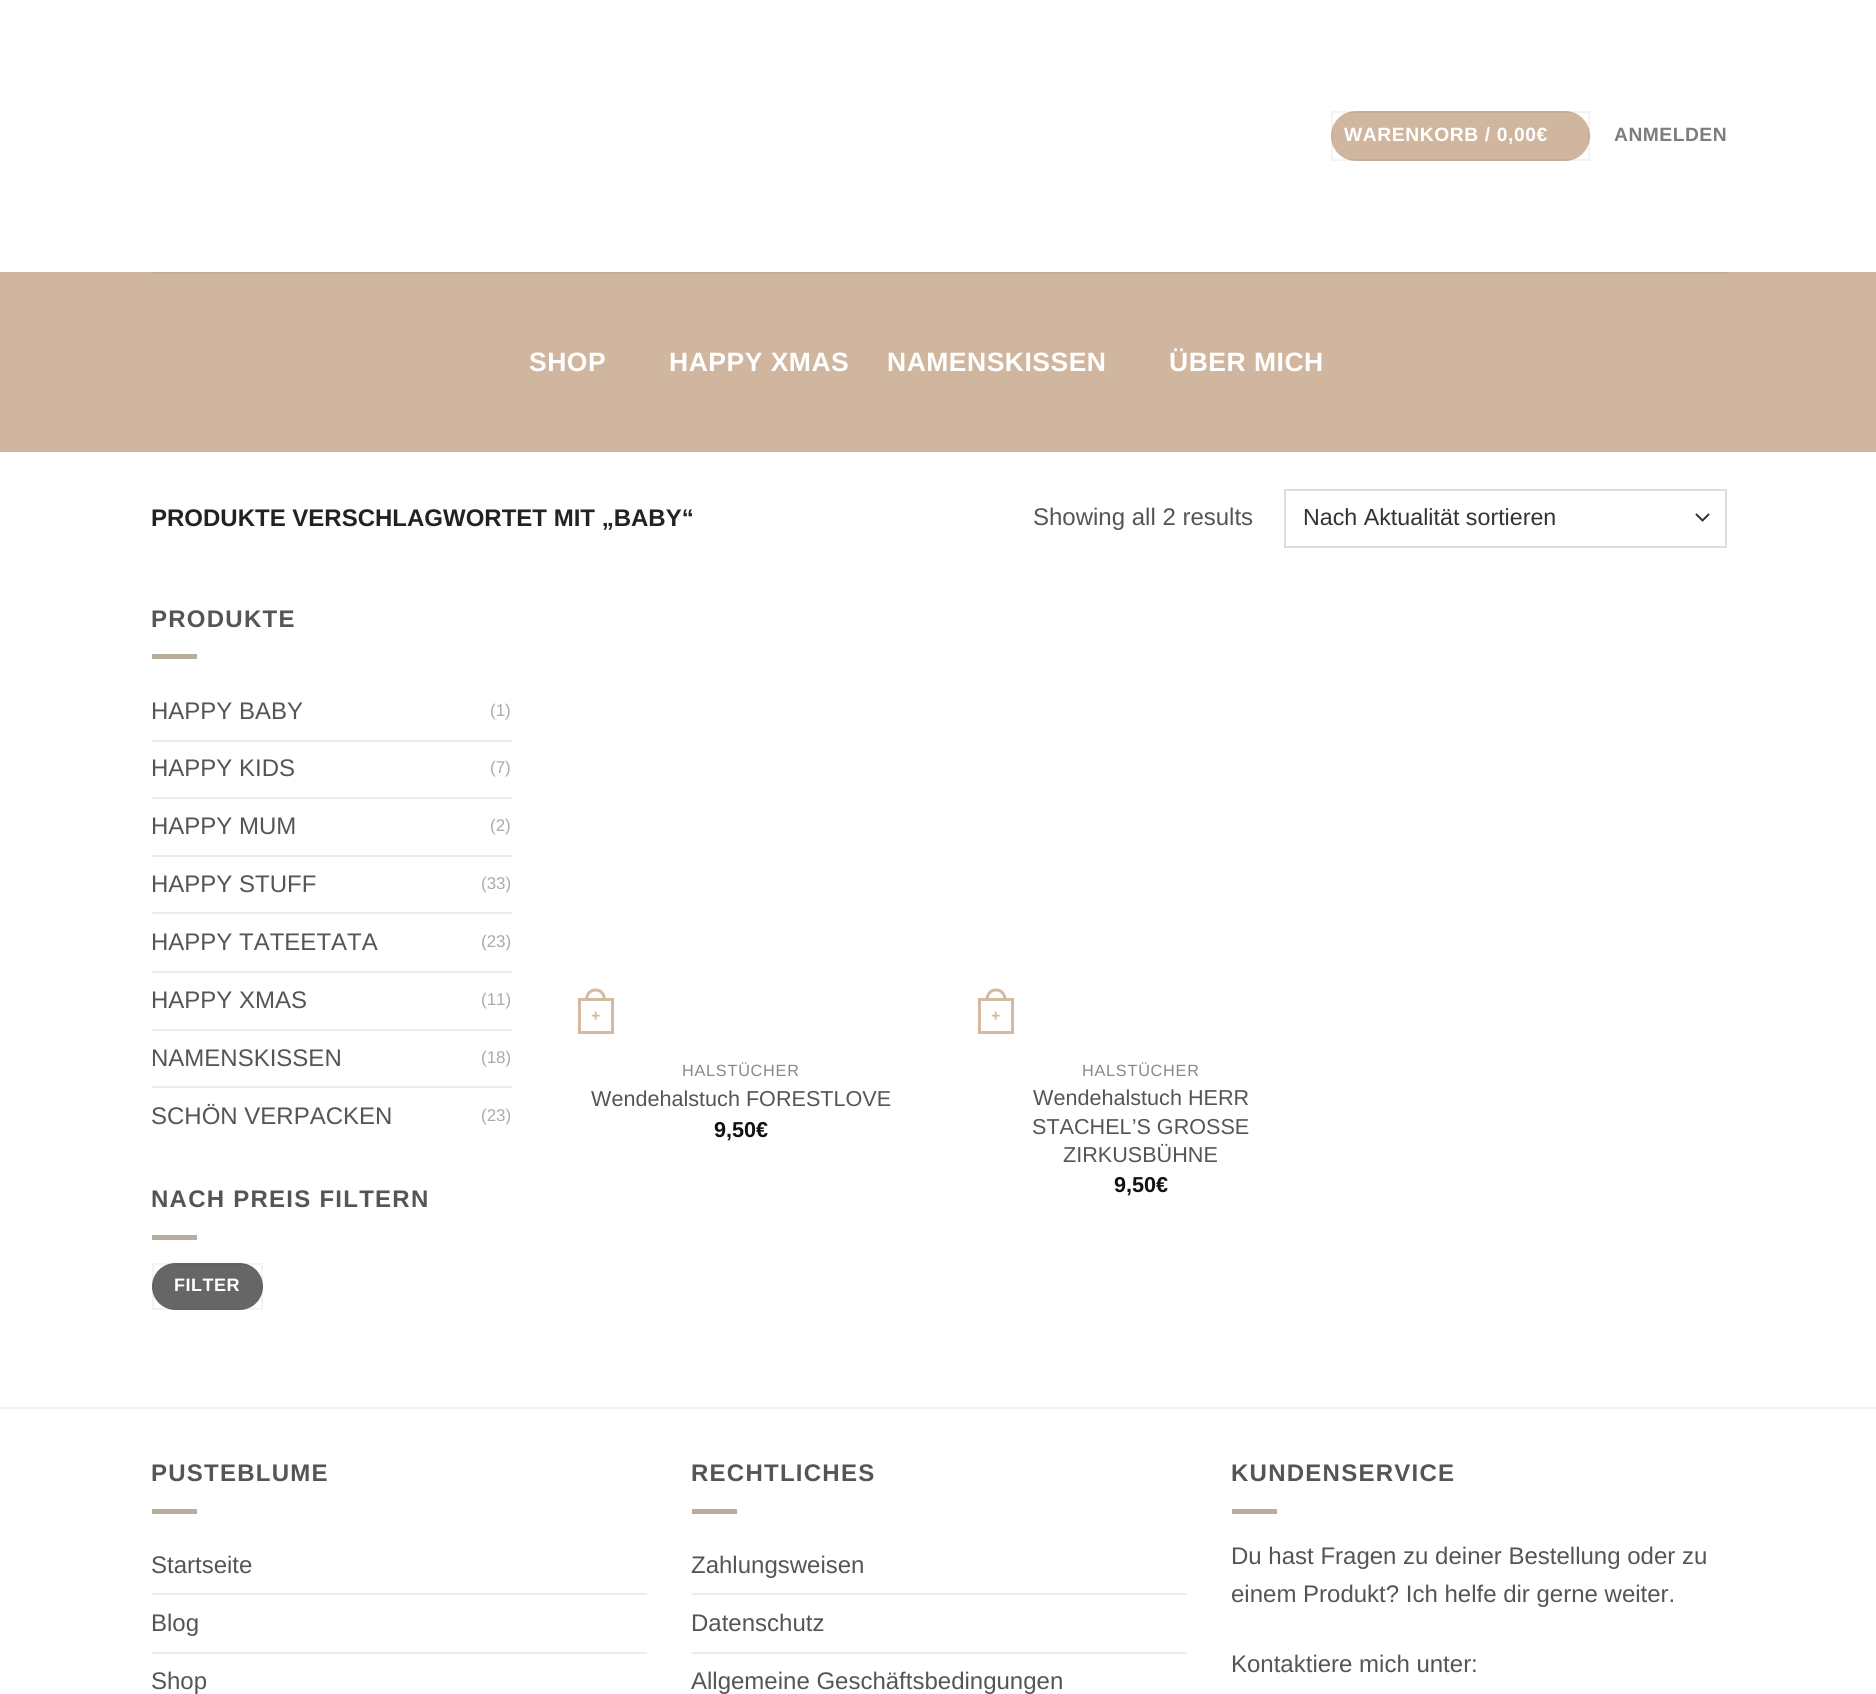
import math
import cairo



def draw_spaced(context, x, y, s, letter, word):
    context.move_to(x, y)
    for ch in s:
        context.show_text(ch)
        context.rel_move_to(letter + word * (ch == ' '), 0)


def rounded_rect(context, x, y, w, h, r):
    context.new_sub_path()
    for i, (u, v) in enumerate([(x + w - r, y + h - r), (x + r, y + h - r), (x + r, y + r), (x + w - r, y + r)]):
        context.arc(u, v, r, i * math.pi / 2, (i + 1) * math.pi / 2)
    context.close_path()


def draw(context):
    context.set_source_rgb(1, 1, 1)
    context.paint()
    context.set_source_rgb(208 / 255, 182 / 255, 158 / 255)
    rounded_rect(context, 1331, 111, 259, 50, 25)
    context.fill()
    context.rectangle(1332, 112, 257, 48)
    context.set_source_rgba(0, 0, 0, 0.05)
    context.stroke()
    context.set_source_rgb(208 / 255, 182 / 255, 158 / 255)
    context.rectangle(0, 272, 1876, 180)
    context.fill()
    context.set_source_rgb(196 / 255, 172 / 255, 151 / 255)
    context.rectangle(152, 272, 1575, 2)
    context.fill()
    context.new_path()
    context.move_to(1696.5, 514.5)
    context.line_to(1702.5, 520.5)
    context.line_to(1708.5, 514.5)
    context.set_source_rgb(51 / 255, 51 / 255, 51 / 255)
    context.set_line_cap(cairo.LineCap.ROUND)
    context.set_line_join(cairo.LineJoin.ROUND)
    context.stroke()
    context.rectangle(1285, 490, 441, 57)
    context.set_source_rgb(221 / 255, 221 / 255, 221 / 255)
    context.set_line_cap(cairo.LineCap.BUTT)
    context.set_line_join(cairo.LineJoin.MITER)
    context.stroke()
    context.set_source_rgb(184 / 255, 172 / 255, 156 / 255)
    context.rectangle(152, 654, 45, 5)
    context.fill()
    context.set_source_rgb(236 / 255, 236 / 255, 236 / 255)
    context.rectangle(152, 740, 360, 2)
    context.fill()
    context.rectangle(152, 797, 360, 2)
    context.fill()
    context.rectangle(152, 855, 360, 2)
    context.fill()
    context.rectangle(152, 912, 360, 2)
    context.fill()
    context.rectangle(152, 971, 360, 2)
    context.fill()
    context.rectangle(152, 1029, 360, 2)
    context.fill()
    context.rectangle(152, 1086, 360, 2)
    context.fill()
    context.set_source_rgb(184 / 255, 172 / 255, 156 / 255)
    context.rectangle(152, 1235, 45, 5)
    context.fill()
    context.set_source_rgb(102 / 255, 102 / 255, 102 / 255)
    rounded_rect(context, 152, 1263, 111, 47, 23.5)
    context.fill()
    context.rectangle(153, 1264, 109, 45)
    context.set_source_rgba(0, 0, 0, 0.05)
    context.stroke()
    context.rectangle(579.5, 999.5, 33, 33)
    context.set_source_rgb(210 / 255, 186 / 255, 163 / 255)
    context.set_line_width(3)
    context.stroke()
    context.set_fill_rule(cairo.FillRule.EVEN_ODD)
    context.new_path()
    context.move_to(595.5, 988.5)
    context.curve_to(602.5, 988.5, 606, 994, 606, 1000.5)
    context.line_to(585, 1000.5)
    context.curve_to(585, 994, 588.5, 988.5, 595.5, 988.5)
    context.close_path()
    context.move_to(595.5, 991.5)
    context.curve_to(601, 991.5, 603, 996, 603, 1000.5)
    context.line_to(588, 1000.5)
    context.curve_to(588, 996, 590, 991.5, 595.5, 991.5)
    context.close_path()
    context.fill()
    context.rectangle(979.5, 999.5, 33, 33)
    context.stroke()
    context.new_path()
    context.move_to(996, 988.5)
    context.curve_to(1003, 988.5, 1006.5, 994, 1006.5, 1000.5)
    context.line_to(985.5, 1000.5)
    context.curve_to(985.5, 994, 989, 988.5, 996, 988.5)
    context.close_path()
    context.move_to(996, 991.5)
    context.curve_to(1001.5, 991.5, 1003.5, 996, 1003.5, 1000.5)
    context.line_to(988.5, 1000.5)
    context.curve_to(988.5, 996, 990.5, 991.5, 996, 991.5)
    context.close_path()
    context.fill()
    context.set_source_rgb(242 / 255, 242 / 255, 242 / 255)
    context.rectangle(0, 1407, 1876, 2)
    context.fill()
    context.set_source_rgb(184 / 255, 172 / 255, 156 / 255)
    context.rectangle(152, 1509, 45, 5)
    context.fill()
    context.set_source_rgb(236 / 255, 236 / 255, 236 / 255)
    context.rectangle(152, 1593, 495, 2)
    context.fill()
    context.rectangle(152, 1652, 495, 2)
    context.fill()
    context.set_source_rgb(184 / 255, 172 / 255, 156 / 255)
    context.rectangle(692, 1509, 45, 5)
    context.fill()
    context.set_source_rgb(236 / 255, 236 / 255, 236 / 255)
    context.rectangle(692, 1593, 495, 2)
    context.fill()
    context.rectangle(692, 1652, 495, 2)
    context.fill()
    context.set_source_rgb(184 / 255, 172 / 255, 156 / 255)
    context.rectangle(1232, 1509, 45, 5)
    context.fill()
    context.select_font_face("Liberation Sans", cairo.FontSlant.NORMAL, cairo.FontWeight.BOLD)
    context.set_font_size(19.25)
    context.set_source_rgb(1, 1, 1)
    draw_spaced(context, 1344, 141, "WARENKORB / 0,00€", 0.6, 0)
    context.set_source_rgb(125 / 255, 125 / 255, 125 / 255)
    draw_spaced(context, 1614, 141, "ANMELDEN", 0.5, 0)
    context.set_font_size(26.5)
    context.set_source_rgb(1, 1, 1)
    draw_spaced(context, 529, 371, "SHOP", 0.5, 0)
    draw_spaced(context, 669, 371, "HAPPY XMAS", 0.5, 0)
    draw_spaced(context, 887, 371, "NAMENSKISSEN", 0.5, 0)
    draw_spaced(context, 1169, 371, "ÜBER MICH", 0.5, 0)
    context.set_font_size(24)
    context.set_source_rgb(34 / 255, 34 / 255, 34 / 255)
    context.move_to(151, 526)
    context.show_text("PRODUKTE VERSCHLAGWORTET MIT „BABY“")
    context.select_font_face("Liberation Sans")
    context.set_source_rgb(85 / 255, 85 / 255, 85 / 255)
    context.move_to(1033, 525)
    context.show_text("Showing all 2 results")
    context.set_font_size(23.25)
    context.set_source_rgb(51 / 255, 51 / 255, 51 / 255)
    context.move_to(1303, 525)
    context.show_text("Nach Aktualität sortieren")
    context.select_font_face("Liberation Sans", cairo.FontSlant.NORMAL, cairo.FontWeight.BOLD)
    context.set_font_size(24)
    context.set_source_rgb(85 / 255, 85 / 255, 85 / 255)
    draw_spaced(context, 151, 627, "PRODUKTE", 1.25, 0)
    context.select_font_face("Liberation Sans")
    context.move_to(151, 719)
    context.show_text("HAPPY BABY")
    context.set_font_size(17)
    context.set_source_rgb(170 / 255, 170 / 255, 170 / 255)
    context.move_to(490, 716)
    context.show_text("(1)")
    context.set_font_size(24)
    context.set_source_rgb(85 / 255, 85 / 255, 85 / 255)
    context.move_to(151, 776)
    context.show_text("HAPPY KIDS")
    context.set_font_size(17)
    context.set_source_rgb(170 / 255, 170 / 255, 170 / 255)
    context.move_to(490, 773)
    context.show_text("(7)")
    context.set_font_size(24)
    context.set_source_rgb(85 / 255, 85 / 255, 85 / 255)
    context.move_to(151, 834)
    context.show_text("HAPPY MUM")
    context.set_font_size(17)
    context.set_source_rgb(170 / 255, 170 / 255, 170 / 255)
    context.move_to(490, 831)
    context.show_text("(2)")
    context.set_font_size(24)
    context.set_source_rgb(85 / 255, 85 / 255, 85 / 255)
    context.move_to(151, 892)
    context.show_text("HAPPY STUFF")
    context.set_font_size(17)
    context.set_source_rgb(170 / 255, 170 / 255, 170 / 255)
    context.move_to(481, 889)
    context.show_text("(33)")
    context.set_font_size(24)
    context.set_source_rgb(85 / 255, 85 / 255, 85 / 255)
    context.move_to(151, 950)
    context.show_text("HAPPY TATEETATA")
    context.set_font_size(17)
    context.set_source_rgb(170 / 255, 170 / 255, 170 / 255)
    context.move_to(481, 947)
    context.show_text("(23)")
    context.set_font_size(24)
    context.set_source_rgb(85 / 255, 85 / 255, 85 / 255)
    context.move_to(151, 1008)
    context.show_text("HAPPY XMAS")
    context.set_font_size(17)
    context.set_source_rgb(170 / 255, 170 / 255, 170 / 255)
    context.move_to(481, 1005)
    context.show_text("(11)")
    context.set_font_size(24)
    context.set_source_rgb(85 / 255, 85 / 255, 85 / 255)
    context.move_to(151, 1066)
    context.show_text("NAMENSKISSEN")
    context.set_font_size(17)
    context.set_source_rgb(170 / 255, 170 / 255, 170 / 255)
    context.move_to(481, 1063)
    context.show_text("(18)")
    context.set_font_size(24)
    context.set_source_rgb(85 / 255, 85 / 255, 85 / 255)
    context.move_to(151, 1124)
    context.show_text("SCHÖN VERPACKEN")
    context.set_font_size(17)
    context.set_source_rgb(170 / 255, 170 / 255, 170 / 255)
    context.move_to(481, 1121)
    context.show_text("(23)")
    context.select_font_face("Liberation Sans", cairo.FontSlant.NORMAL, cairo.FontWeight.BOLD)
    context.set_font_size(24)
    context.set_source_rgb(85 / 255, 85 / 255, 85 / 255)
    draw_spaced(context, 151, 1207, "NACH PREIS FILTERN", 1.25, 0)
    context.set_font_size(18)
    context.set_source_rgb(1, 1, 1)
    draw_spaced(context, 174, 1291, "FILTER", 0.5, 0)
    context.set_font_size(16)
    context.set_source_rgb(210 / 255, 186 / 255, 163 / 255)
    context.move_to(591, 1021)
    context.show_text("+")
    context.select_font_face("Liberation Sans")
    context.set_font_size(16.25)
    context.set_source_rgb(136 / 255, 136 / 255, 136 / 255)
    draw_spaced(context, 682, 1076, "HALSTÜCHER", 0.75, 0)
    context.set_font_size(21.6)
    context.set_source_rgb(85 / 255, 85 / 255, 85 / 255)
    context.move_to(591, 1106)
    context.show_text("Wendehalstuch FORESTLOVE")
    context.select_font_face("Liberation Sans", cairo.FontSlant.NORMAL, cairo.FontWeight.BOLD)
    context.set_source_rgb(17 / 255, 17 / 255, 17 / 255)
    context.move_to(714, 1137)
    context.show_text("9,50€")
    context.set_font_size(16)
    context.set_source_rgb(210 / 255, 186 / 255, 163 / 255)
    context.move_to(991, 1021)
    context.show_text("+")
    context.select_font_face("Liberation Sans")
    context.set_font_size(16.25)
    context.set_source_rgb(136 / 255, 136 / 255, 136 / 255)
    draw_spaced(context, 1082, 1076, "HALSTÜCHER", 0.75, 0)
    context.set_font_size(21.6)
    context.set_source_rgb(85 / 255, 85 / 255, 85 / 255)
    context.move_to(1033, 1105)
    context.show_text("Wendehalstuch HERR")
    context.move_to(1032, 1134)
    context.show_text("STACHEL’S GROSSE")
    context.move_to(1063, 1162)
    context.show_text("ZIRKUSBÜHNE")
    context.select_font_face("Liberation Sans", cairo.FontSlant.NORMAL, cairo.FontWeight.BOLD)
    context.set_source_rgb(17 / 255, 17 / 255, 17 / 255)
    context.move_to(1114, 1192)
    context.show_text("9,50€")
    context.set_font_size(24)
    context.set_source_rgb(85 / 255, 85 / 255, 85 / 255)
    draw_spaced(context, 151, 1481, "PUSTEBLUME", 1.25, 0)
    context.select_font_face("Liberation Sans")
    context.move_to(151, 1573)
    context.show_text("Startseite")
    context.move_to(151, 1631)
    context.show_text("Blog")
    context.move_to(151, 1689)
    context.show_text("Shop")
    context.select_font_face("Liberation Sans", cairo.FontSlant.NORMAL, cairo.FontWeight.BOLD)
    draw_spaced(context, 691, 1481, "RECHTLICHES", 1.25, 0)
    context.select_font_face("Liberation Sans")
    context.move_to(691, 1573)
    context.show_text("Zahlungsweisen")
    context.move_to(691, 1631)
    context.show_text("Datenschutz")
    context.move_to(691, 1689)
    context.show_text("Allgemeine Geschäftsbedingungen")
    context.select_font_face("Liberation Sans", cairo.FontSlant.NORMAL, cairo.FontWeight.BOLD)
    draw_spaced(context, 1231, 1481, "KUNDENSERVICE", 1.25, 0)
    context.select_font_face("Liberation Sans")
    context.move_to(1231, 1564)
    context.show_text("Du hast Fragen zu deiner Bestellung oder zu")
    context.move_to(1231, 1602)
    context.show_text("einem Produkt? Ich helfe dir gerne weiter.")
    context.move_to(1231, 1672)
    context.show_text("Kontaktiere mich unter:")


surface = cairo.ImageSurface(cairo.Format.RGB24, 1876, 1694)
context = cairo.Context(surface)
options = cairo.FontOptions()
options.set_hint_metrics(cairo.HintMetrics.OFF)
options.set_hint_style(cairo.HintStyle.NONE)
context.set_font_options(options)
context.set_miter_limit(4)
draw(context)
surface.write_to_png("out.png")
